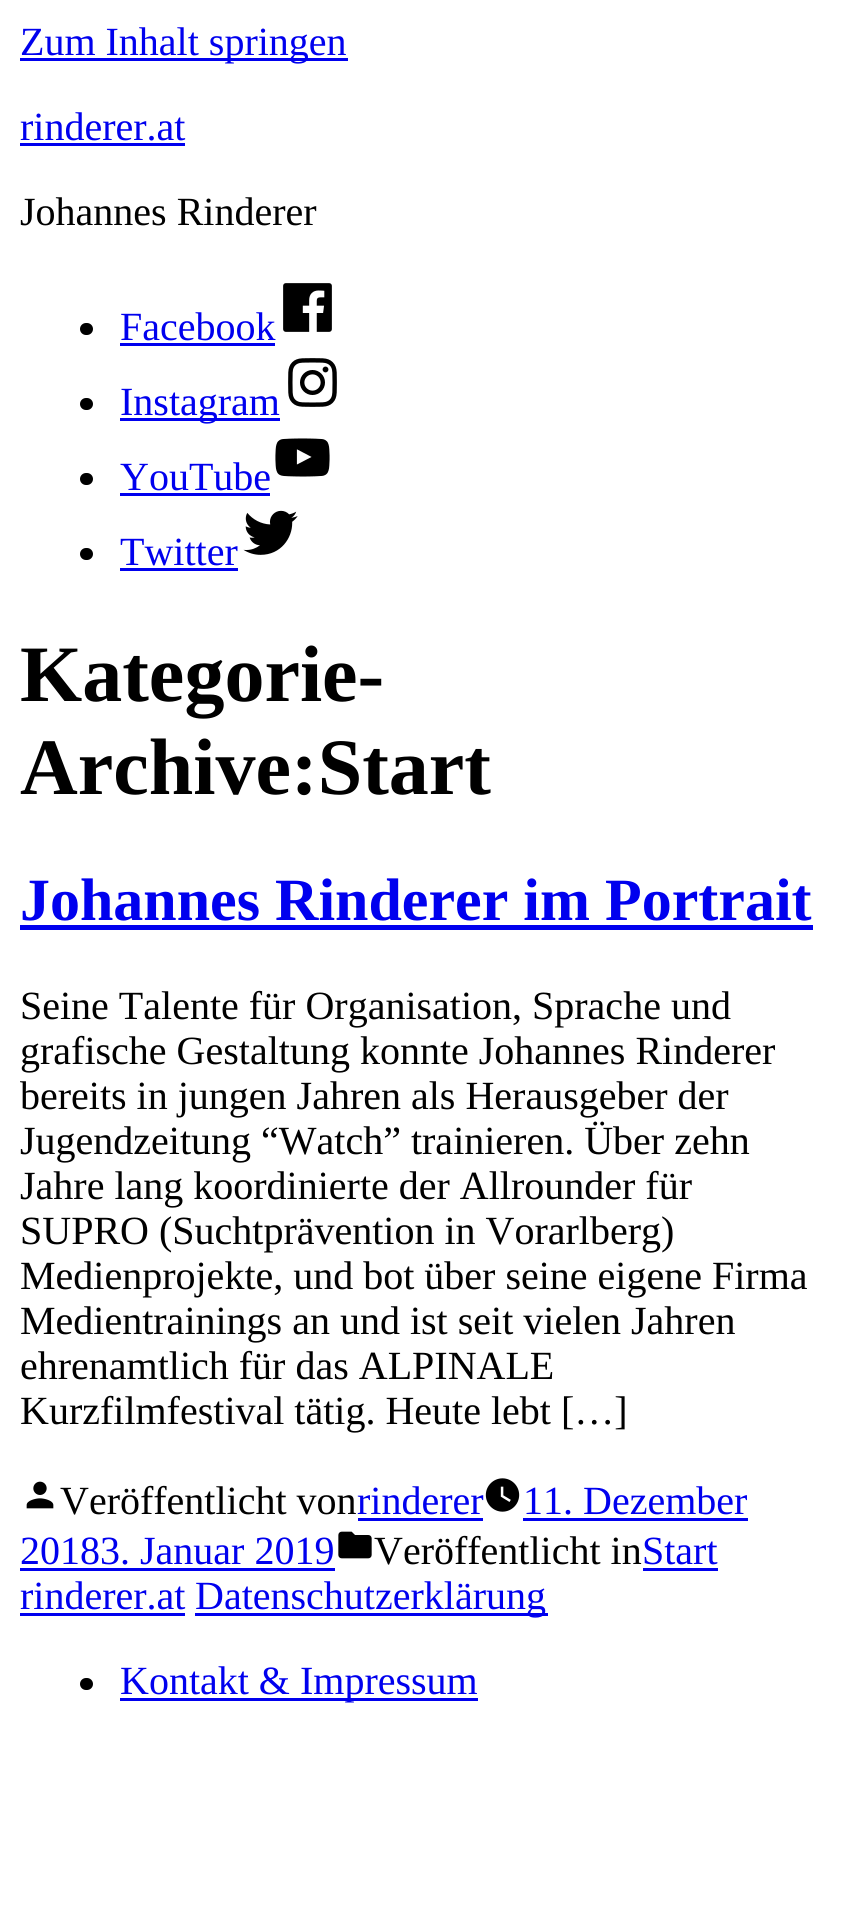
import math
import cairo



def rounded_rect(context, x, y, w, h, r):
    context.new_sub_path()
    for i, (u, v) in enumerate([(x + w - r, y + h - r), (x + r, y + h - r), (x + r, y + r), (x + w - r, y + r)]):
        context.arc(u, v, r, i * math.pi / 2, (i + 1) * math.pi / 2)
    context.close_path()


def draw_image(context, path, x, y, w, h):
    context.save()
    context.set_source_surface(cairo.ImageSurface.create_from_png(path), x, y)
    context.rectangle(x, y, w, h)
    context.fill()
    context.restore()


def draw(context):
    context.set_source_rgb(1, 1, 1)
    context.paint()
    context.set_source_rgb(0, 0, 238 / 255)
    context.rectangle(20, 58, 328, 3)
    context.fill()
    context.rectangle(20, 143, 165, 3)
    context.fill()
    context.set_source_rgb(0, 0, 0)
    rounded_rect(context, 80, 323, 13, 12, 6)
    context.fill()
    context.set_source_rgb(0, 0, 238 / 255)
    context.rectangle(120, 343, 155, 3)
    context.fill()
    draw_image(context, "images/1.png", 283, 283, 49, 49)
    context.set_source_rgb(0, 0, 0)
    rounded_rect(context, 80, 398, 13, 12, 6)
    context.fill()
    context.set_source_rgb(0, 0, 238 / 255)
    context.rectangle(120, 418, 160, 3)
    context.fill()
    draw_image(context, "images/2.png", 288, 358, 49, 49)
    context.set_source_rgb(0, 0, 0)
    rounded_rect(context, 80, 473, 13, 12, 6)
    context.fill()
    context.set_source_rgb(0, 0, 238 / 255)
    context.rectangle(120, 493, 150, 3)
    context.fill()
    draw_image(context, "images/3.png", 275, 438, 55, 39)
    context.set_source_rgb(0, 0, 0)
    rounded_rect(context, 80, 548, 13, 12, 6)
    context.fill()
    context.set_source_rgb(0, 0, 238 / 255)
    context.rectangle(120, 568, 118, 3)
    context.fill()
    draw_image(context, "images/4.png", 243, 510, 55, 45)
    context.rectangle(20, 925, 793, 5)
    context.fill()
    draw_image(context, "images/5.png", 26, 1481, 28, 28)
    context.rectangle(358, 1518, 125, 3)
    context.fill()
    draw_image(context, "images/6.png", 485, 1478, 35, 34)
    context.rectangle(523, 1518, 225, 3)
    context.fill()
    context.rectangle(20, 1568, 315, 3)
    context.fill()
    draw_image(context, "images/7.png", 338, 1531, 34, 28)
    context.rectangle(643, 1568, 75, 3)
    context.fill()
    context.rectangle(20, 1613, 165, 3)
    context.fill()
    context.rectangle(195, 1613, 353, 3)
    context.fill()
    context.set_source_rgb(0, 0, 0)
    rounded_rect(context, 80, 1678, 13, 12, 6)
    context.fill()
    context.set_source_rgb(0, 0, 238 / 255)
    context.rectangle(120, 1698, 358, 3)
    context.fill()
    context.select_font_face("Liberation Serif")
    context.set_font_size(40)
    context.move_to(20, 55)
    context.show_text("Zum Inhalt springen")
    context.move_to(20, 140)
    context.show_text("rinderer.at")
    context.set_source_rgb(0, 0, 0)
    context.move_to(20, 225)
    context.show_text("Johannes Rinderer")
    context.set_source_rgb(0, 0, 238 / 255)
    context.move_to(120, 340)
    context.show_text("Facebook")
    context.move_to(120, 415)
    context.show_text("Instagram")
    context.move_to(120, 490)
    context.show_text("YouTube")
    context.move_to(120, 565)
    context.show_text("Twitter")
    context.select_font_face("Liberation Serif", cairo.FontSlant.NORMAL, cairo.FontWeight.BOLD)
    context.set_font_size(80)
    context.set_source_rgb(0, 0, 0)
    context.move_to(20, 701)
    context.show_text("Kategorie-")
    context.move_to(20, 794)
    context.show_text("Archive:Start")
    context.set_font_size(60)
    context.set_source_rgb(0, 0, 238 / 255)
    context.move_to(20, 920)
    context.show_text("Johannes Rinderer im Portrait")
    context.select_font_face("Liberation Serif")
    context.set_font_size(40)
    context.set_source_rgb(0, 0, 0)
    context.move_to(20, 1019)
    context.show_text("Seine Talente für Organisation, Sprache und")
    context.move_to(20, 1064)
    context.show_text("grafische Gestaltung konnte Johannes Rinderer")
    context.move_to(20, 1109)
    context.show_text("bereits in jungen Jahren als Herausgeber der")
    context.move_to(20, 1154)
    context.show_text("Jugendzeitung “Watch” trainieren. Über zehn")
    context.move_to(20, 1199)
    context.show_text("Jahre lang koordinierte der Allrounder für")
    context.move_to(20, 1244)
    context.show_text("SUPRO (Suchtprävention in Vorarlberg)")
    context.move_to(20, 1289)
    context.show_text("Medienprojekte, und bot über seine eigene Firma")
    context.move_to(20, 1334)
    context.show_text("Medientrainings an und ist seit vielen Jahren")
    context.move_to(20, 1379)
    context.show_text("ehrenamtlich für das ALPINALE")
    context.move_to(20, 1424)
    context.show_text("Kurzfilmfestival tätig. Heute lebt […]")
    context.move_to(60, 1514)
    context.show_text("Veröffentlicht von")
    context.set_source_rgb(0, 0, 238 / 255)
    context.move_to(357, 1514)
    context.show_text("rinderer")
    context.move_to(523, 1514)
    context.show_text("11. Dezember")
    context.move_to(20, 1564)
    context.show_text("20183. Januar 2019")
    context.set_source_rgb(0, 0, 0)
    context.move_to(374, 1564)
    context.show_text("Veröffentlicht in")
    context.set_source_rgb(0, 0, 238 / 255)
    context.move_to(642, 1564)
    context.show_text("Start")
    context.move_to(20, 1609)
    context.show_text("rinderer.at")
    context.move_to(195, 1609)
    context.show_text("Datenschutzerklärung")
    context.move_to(120, 1694)
    context.show_text("Kontakt & Impressum")


surface = cairo.ImageSurface(cairo.Format.RGB24, 843, 1930)
context = cairo.Context(surface)
options = cairo.FontOptions()
options.set_hint_metrics(cairo.HintMetrics.OFF)
options.set_hint_style(cairo.HintStyle.NONE)
context.set_font_options(options)
context.set_miter_limit(4)
draw(context)
surface.write_to_png("out.png")
